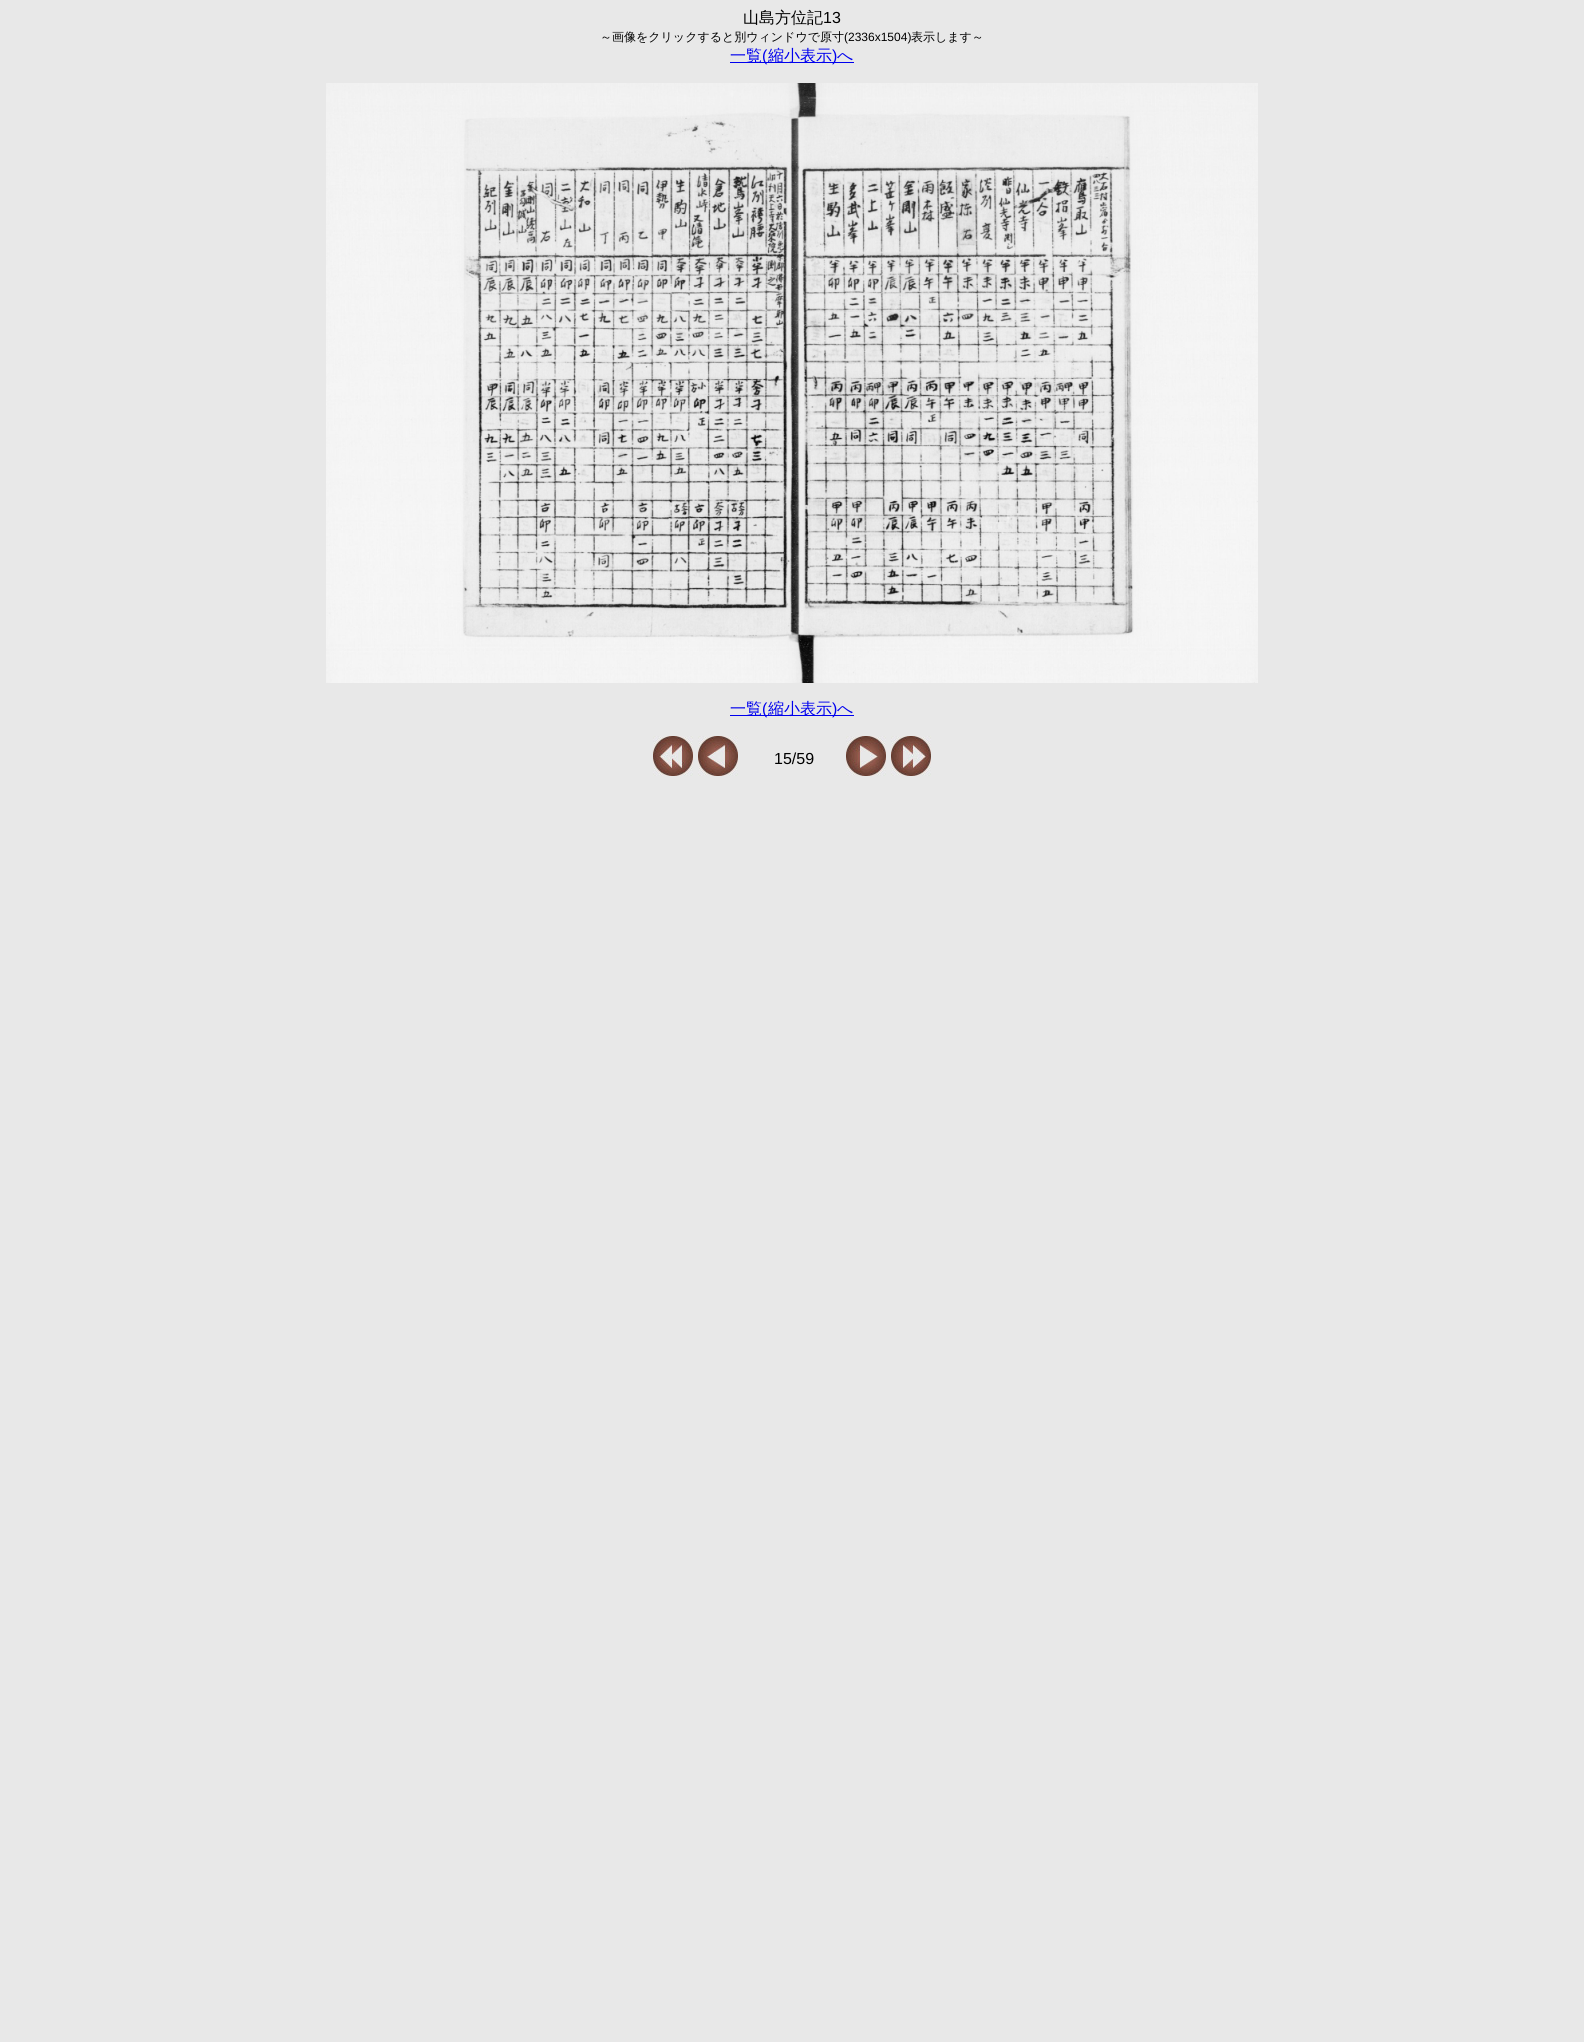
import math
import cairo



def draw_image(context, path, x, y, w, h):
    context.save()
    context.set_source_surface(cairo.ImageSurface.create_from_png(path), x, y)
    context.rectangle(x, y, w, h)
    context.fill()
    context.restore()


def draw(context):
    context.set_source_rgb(232 / 255, 232 / 255, 232 / 255)
    context.paint()
    context.set_source_rgb(0, 0, 238 / 255)
    context.rectangle(730, 62, 124, 1)
    context.fill()
    draw_image(context, "images/1.png", 326, 83, 932, 600)
    context.rectangle(730, 715, 124, 1)
    context.fill()
    draw_image(context, "images/2.png", 653, 736, 40, 40)
    draw_image(context, "images/3.png", 698, 736, 40, 40)
    draw_image(context, "images/4.png", 846, 736, 40, 40)
    draw_image(context, "images/5.png", 891, 736, 40, 40)
    context.select_font_face("WenQuanYi Zen Hei Medium")
    context.set_font_size(16)
    context.set_source_rgb(0, 0, 0)
    context.move_to(743, 23)
    context.show_text("山島方位記")
    context.select_font_face("Liberation Sans")
    context.move_to(823, 23)
    context.show_text("13")
    context.select_font_face("WenQuanYi Zen Hei Medium")
    context.set_font_size(12)
    context.move_to(600, 41)
    context.show_text("～画像をクリックすると別ウィンドウで原寸")
    context.select_font_face("Liberation Sans")
    context.move_to(844, 41)
    context.show_text("(2336x1504)")
    context.select_font_face("WenQuanYi Zen Hei Medium")
    context.move_to(911, 41)
    context.show_text("表示します～")
    context.set_font_size(16)
    context.set_source_rgb(0, 0, 238 / 255)
    context.move_to(730, 61)
    context.show_text("一覧")
    context.select_font_face("Liberation Sans")
    context.move_to(762, 61)
    context.show_text("(")
    context.select_font_face("WenQuanYi Zen Hei Medium")
    context.move_to(768, 61)
    context.show_text("縮小表示")
    context.select_font_face("Liberation Sans")
    context.move_to(832, 61)
    context.show_text(")")
    context.select_font_face("WenQuanYi Zen Hei Medium")
    context.move_to(837, 61)
    context.show_text("へ")
    context.move_to(730, 714)
    context.show_text("一覧")
    context.select_font_face("Liberation Sans")
    context.move_to(762, 714)
    context.show_text("(")
    context.select_font_face("WenQuanYi Zen Hei Medium")
    context.move_to(768, 714)
    context.show_text("縮小表示")
    context.select_font_face("Liberation Sans")
    context.move_to(832, 714)
    context.show_text(")")
    context.select_font_face("WenQuanYi Zen Hei Medium")
    context.move_to(837, 714)
    context.show_text("へ")
    context.select_font_face("Liberation Sans")
    context.set_source_rgb(0, 0, 0)
    context.move_to(774, 764)
    context.show_text("15/59")


surface = cairo.ImageSurface(cairo.Format.RGB24, 1584, 2042)
context = cairo.Context(surface)
options = cairo.FontOptions()
options.set_hint_metrics(cairo.HintMetrics.OFF)
options.set_hint_style(cairo.HintStyle.NONE)
context.set_font_options(options)
context.set_miter_limit(4)
draw(context)
surface.write_to_png("out.png")
